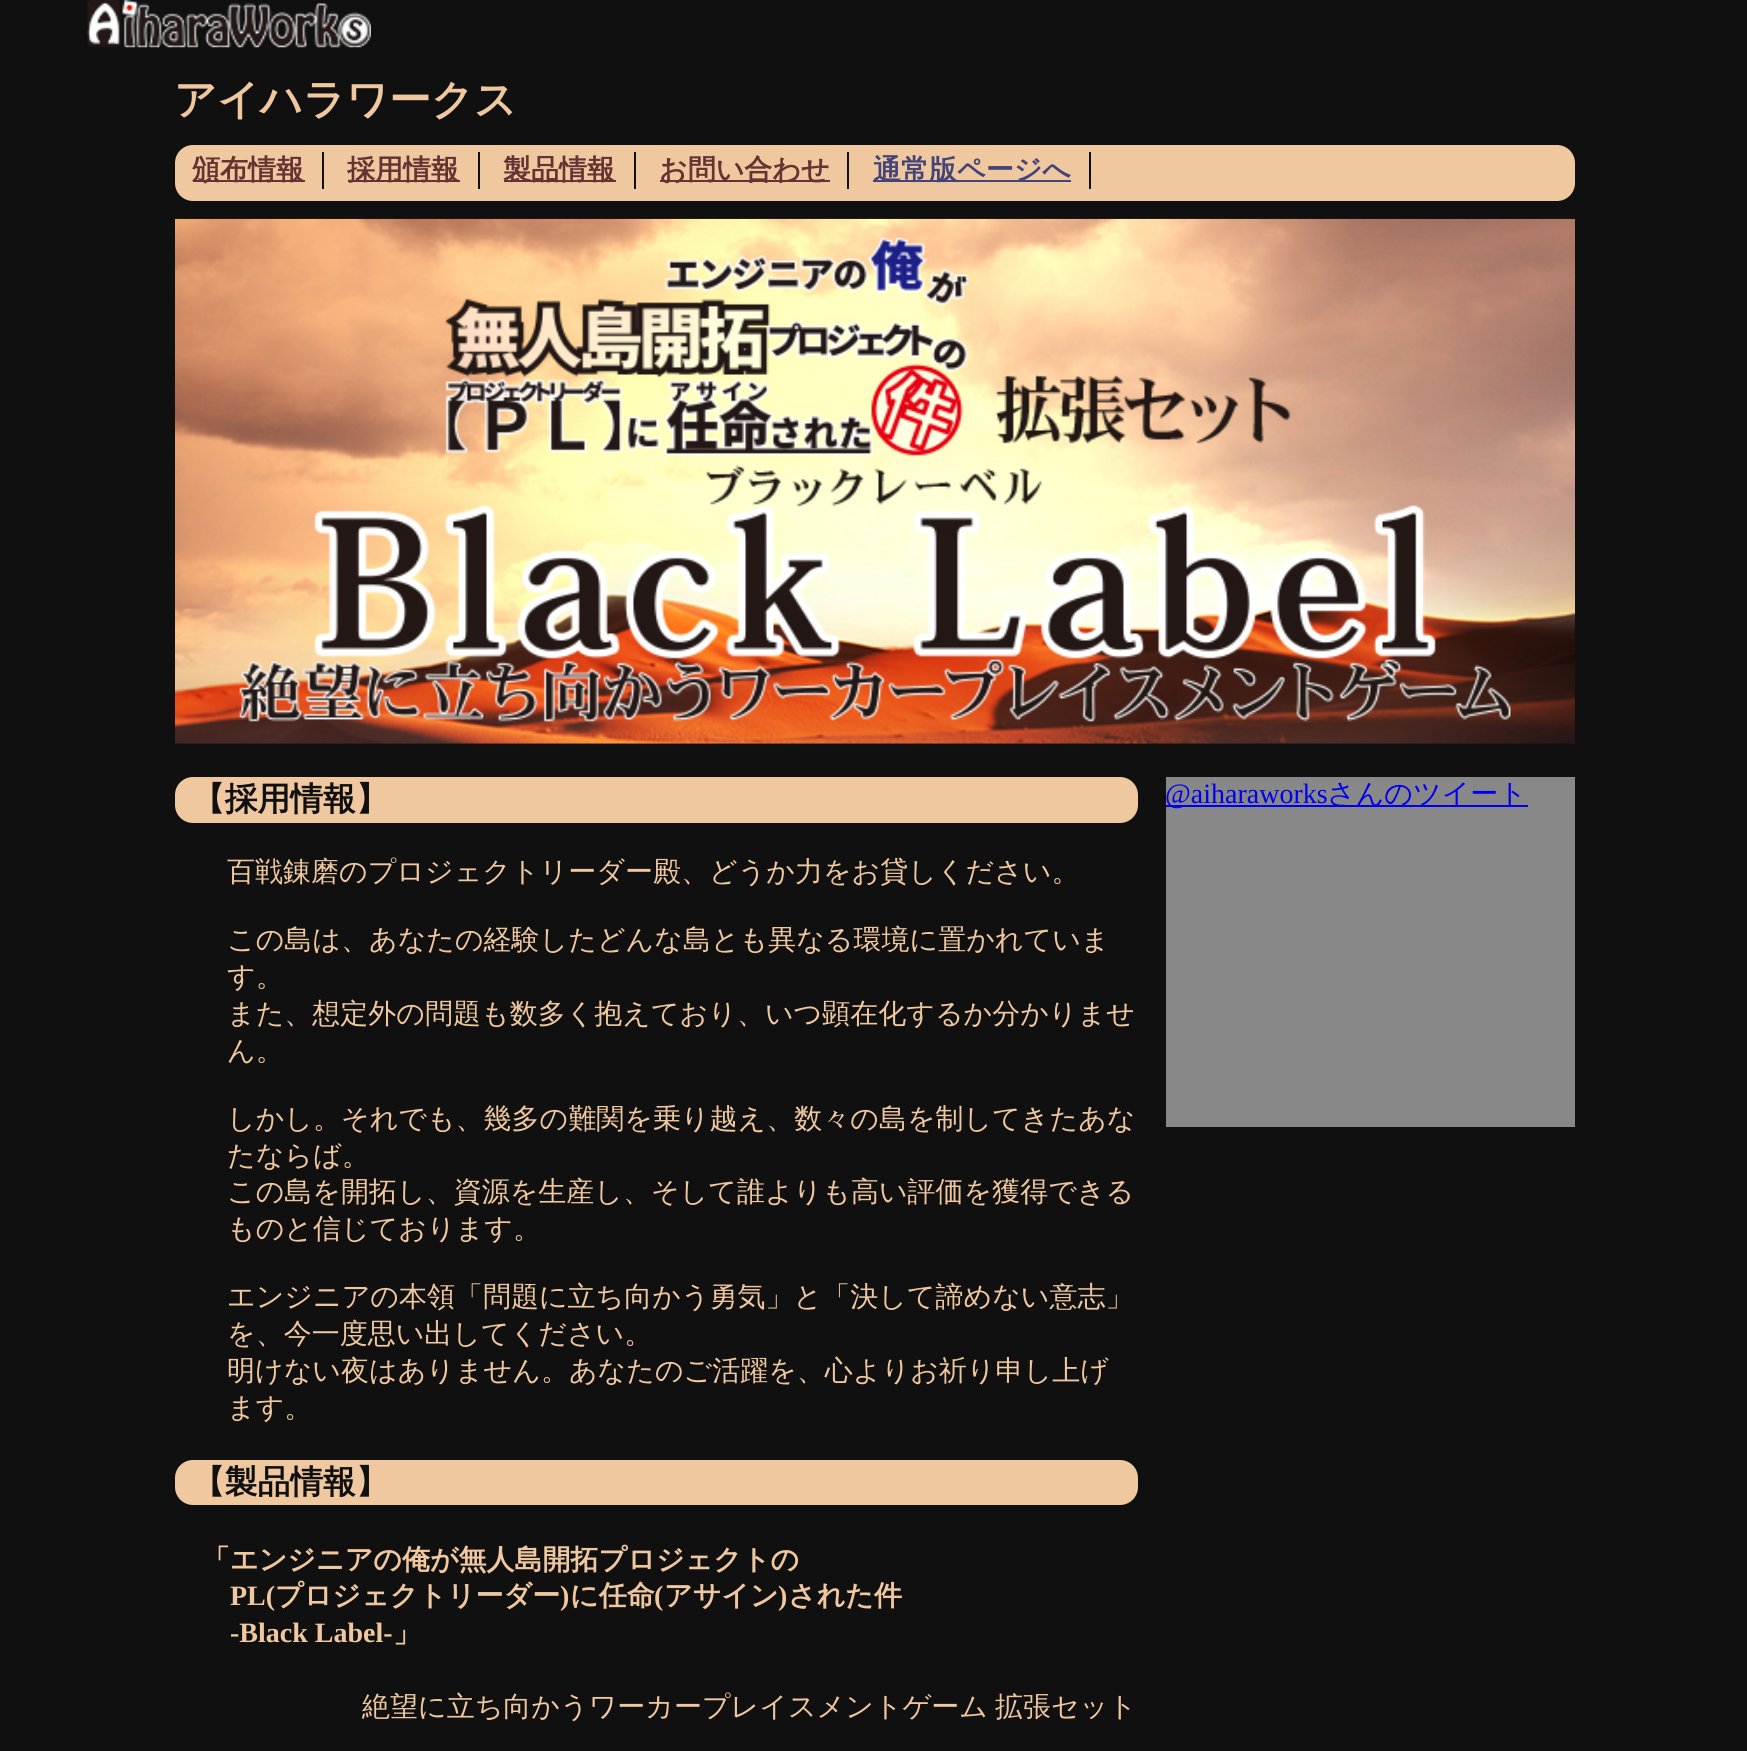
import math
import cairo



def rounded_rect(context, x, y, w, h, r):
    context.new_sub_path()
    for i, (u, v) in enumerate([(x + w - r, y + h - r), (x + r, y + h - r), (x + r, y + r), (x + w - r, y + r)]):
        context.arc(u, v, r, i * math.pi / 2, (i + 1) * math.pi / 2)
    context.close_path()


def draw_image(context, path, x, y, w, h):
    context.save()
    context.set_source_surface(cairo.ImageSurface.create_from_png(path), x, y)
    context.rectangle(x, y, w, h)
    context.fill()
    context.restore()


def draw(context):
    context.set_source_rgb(16 / 255, 16 / 255, 16 / 255)
    context.paint()
    draw_image(context, "images/1.png", 87, 0, 284, 48)
    context.set_source_rgb(240 / 255, 200 / 255, 160 / 255)
    rounded_rect(context, 175, 145, 1400, 56, 18)
    context.fill()
    context.set_source_rgb(16 / 255, 16 / 255, 16 / 255)
    context.rectangle(322, 152, 2, 37)
    context.fill()
    context.set_source_rgb(102 / 255, 51 / 255, 51 / 255)
    context.rectangle(193, 180, 112, 2)
    context.fill()
    context.set_source_rgb(16 / 255, 16 / 255, 16 / 255)
    context.rectangle(478, 152, 2, 37)
    context.fill()
    context.set_source_rgb(102 / 255, 51 / 255, 51 / 255)
    context.rectangle(348, 180, 112, 2)
    context.fill()
    context.set_source_rgb(16 / 255, 16 / 255, 16 / 255)
    context.rectangle(634, 152, 2, 37)
    context.fill()
    context.set_source_rgb(102 / 255, 51 / 255, 51 / 255)
    context.rectangle(504, 180, 112, 2)
    context.fill()
    context.set_source_rgb(16 / 255, 16 / 255, 16 / 255)
    context.rectangle(847, 152, 2, 37)
    context.fill()
    context.set_source_rgb(102 / 255, 51 / 255, 51 / 255)
    context.rectangle(660, 180, 170, 2)
    context.fill()
    context.set_source_rgb(16 / 255, 16 / 255, 16 / 255)
    context.rectangle(1089, 152, 2, 37)
    context.fill()
    context.set_source_rgb(68 / 255, 68 / 255, 119 / 255)
    context.rectangle(873, 180, 198, 2)
    context.fill()
    draw_image(context, "images/2.png", 175, 218, 1400, 526)
    context.set_source_rgb(240 / 255, 200 / 255, 160 / 255)
    rounded_rect(context, 175, 777, 963, 46, 18)
    context.fill()
    rounded_rect(context, 175, 1460, 963, 45, 18)
    context.fill()
    context.set_source_rgb(136 / 255, 136 / 255, 136 / 255)
    context.rectangle(1166, 777, 409, 350)
    context.fill()
    context.set_source_rgb(0, 0, 238 / 255)
    context.rectangle(1166, 805, 362, 2)
    context.fill()
    context.select_font_face("WenQuanYi Zen Hei", cairo.FontSlant.NORMAL, cairo.FontWeight.BOLD)
    context.set_font_size(42)
    context.set_source_rgb(240 / 255, 200 / 255, 160 / 255)
    context.move_to(174, 114)
    context.show_text("アイハラワークス")
    context.set_font_size(28)
    context.set_source_rgb(102 / 255, 51 / 255, 51 / 255)
    context.move_to(192, 179)
    context.show_text("頒布情報")
    context.move_to(347, 179)
    context.show_text("採用情報")
    context.move_to(503, 179)
    context.show_text("製品情報")
    context.move_to(659, 179)
    context.show_text("お問い合わせ")
    context.set_source_rgb(68 / 255, 68 / 255, 119 / 255)
    context.move_to(873, 179)
    context.show_text("通常版ページへ")
    context.set_font_size(32.75)
    context.set_source_rgb(16 / 255, 16 / 255, 16 / 255)
    context.move_to(192, 810)
    context.show_text("【採用情報】")
    context.select_font_face("WenQuanYi Zen Hei Medium")
    context.set_font_size(28)
    context.set_source_rgb(240 / 255, 200 / 255, 160 / 255)
    context.move_to(227, 881)
    context.show_text("百戦錬磨のプロジェクトリーダー殿、どうか力をお貸しください。")
    context.move_to(227, 949)
    context.show_text("この島は、あなたの経験したどんな島とも異なる環境に置かれていま")
    context.move_to(227, 986)
    context.show_text("す。")
    context.move_to(227, 1023)
    context.show_text("また、想定外の問題も数多く抱えており、いつ顕在化するか分かりませ")
    context.move_to(227, 1060)
    context.show_text("ん。")
    context.move_to(227, 1128)
    context.show_text("しかし。それでも、幾多の難関を乗り越え、数々の島を制してきたあな")
    context.move_to(227, 1165)
    context.show_text("たならば。")
    context.move_to(227, 1201)
    context.show_text("この島を開拓し、資源を生産し、そして誰よりも高い評価を獲得できる")
    context.move_to(227, 1238)
    context.show_text("ものと信じております。")
    context.move_to(227, 1306)
    context.show_text("エンジニアの本領「問題に立ち向かう勇気」と「決して諦めない意志」")
    context.move_to(227, 1343)
    context.show_text("を、今一度思い出してください。")
    context.move_to(227, 1380)
    context.show_text("明けない夜はありません。あなたのご活躍を、心よりお祈り申し上げ")
    context.move_to(227, 1417)
    context.show_text("ます。")
    context.select_font_face("WenQuanYi Zen Hei", cairo.FontSlant.NORMAL, cairo.FontWeight.BOLD)
    context.set_font_size(32.75)
    context.set_source_rgb(16 / 255, 16 / 255, 16 / 255)
    context.move_to(192, 1493)
    context.show_text("【製品情報】")
    context.set_font_size(28)
    context.set_source_rgb(240 / 255, 200 / 255, 160 / 255)
    context.move_to(202, 1569)
    context.show_text("「エンジニアの俺が無人島開拓プロジェクトの")
    context.select_font_face("Liberation Serif", cairo.FontSlant.NORMAL, cairo.FontWeight.BOLD)
    context.move_to(230, 1605)
    context.show_text("PL(")
    context.select_font_face("WenQuanYi Zen Hei", cairo.FontSlant.NORMAL, cairo.FontWeight.BOLD)
    context.move_to(275, 1605)
    context.show_text("プロジェクトリーダー")
    context.select_font_face("Liberation Serif", cairo.FontSlant.NORMAL, cairo.FontWeight.BOLD)
    context.move_to(560, 1605)
    context.show_text(")")
    context.select_font_face("WenQuanYi Zen Hei", cairo.FontSlant.NORMAL, cairo.FontWeight.BOLD)
    context.move_to(570, 1605)
    context.show_text("に任命")
    context.select_font_face("Liberation Serif", cairo.FontSlant.NORMAL, cairo.FontWeight.BOLD)
    context.move_to(654, 1605)
    context.show_text("(")
    context.select_font_face("WenQuanYi Zen Hei", cairo.FontSlant.NORMAL, cairo.FontWeight.BOLD)
    context.move_to(664, 1605)
    context.show_text("アサイン")
    context.select_font_face("Liberation Serif", cairo.FontSlant.NORMAL, cairo.FontWeight.BOLD)
    context.move_to(778, 1605)
    context.show_text(")")
    context.select_font_face("WenQuanYi Zen Hei", cairo.FontSlant.NORMAL, cairo.FontWeight.BOLD)
    context.move_to(788, 1605)
    context.show_text("された件")
    context.select_font_face("Liberation Serif", cairo.FontSlant.NORMAL, cairo.FontWeight.BOLD)
    context.move_to(230, 1642)
    context.show_text("-Black Label-")
    context.select_font_face("WenQuanYi Zen Hei", cairo.FontSlant.NORMAL, cairo.FontWeight.BOLD)
    context.move_to(393, 1642)
    context.show_text("」")
    context.select_font_face("WenQuanYi Zen Hei Medium")
    context.move_to(362, 1716)
    context.show_text("絶望に立ち向かうワーカープレイスメントゲーム")
    context.move_to(995, 1716)
    context.show_text("拡張セット")
    context.select_font_face("Liberation Serif")
    context.set_source_rgb(0, 0, 238 / 255)
    context.move_to(1165, 803)
    context.show_text("@aiharaworks")
    context.select_font_face("WenQuanYi Zen Hei Medium")
    context.move_to(1327, 803)
    context.show_text("さんのツイート")


surface = cairo.ImageSurface(cairo.Format.RGB24, 1747, 1751)
context = cairo.Context(surface)
options = cairo.FontOptions()
options.set_hint_metrics(cairo.HintMetrics.OFF)
options.set_hint_style(cairo.HintStyle.NONE)
context.set_font_options(options)
context.set_miter_limit(4)
draw(context)
surface.write_to_png("out.png")
